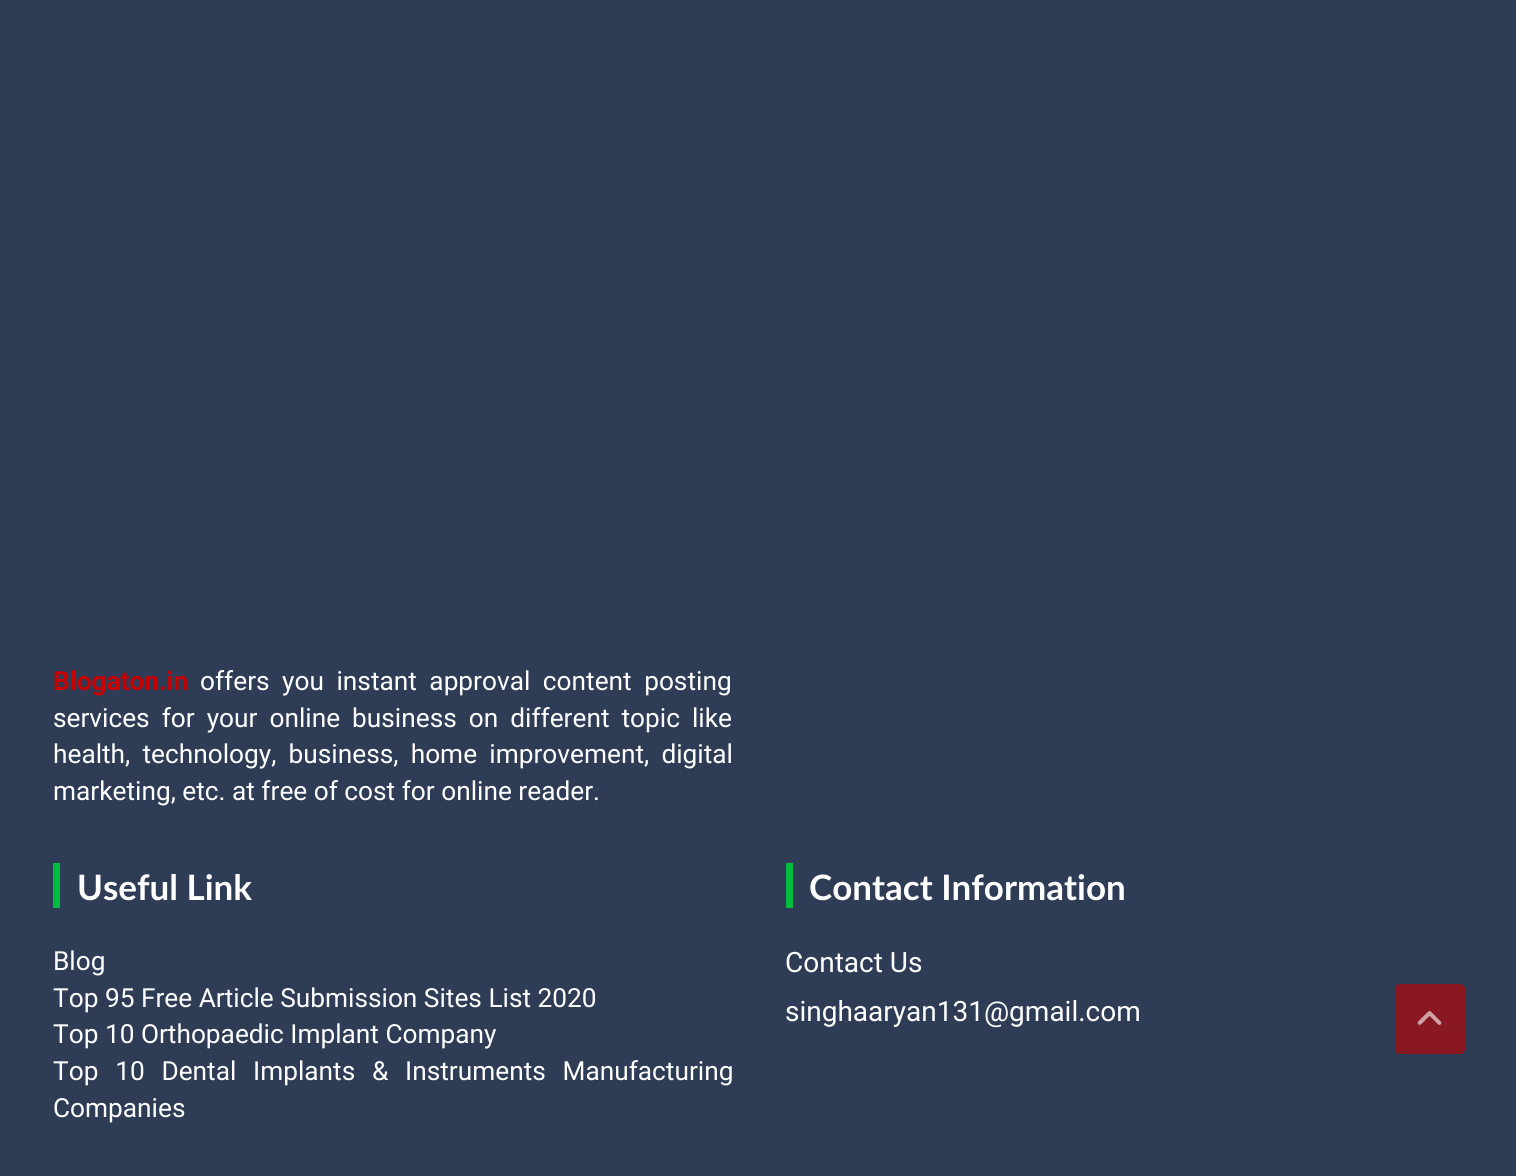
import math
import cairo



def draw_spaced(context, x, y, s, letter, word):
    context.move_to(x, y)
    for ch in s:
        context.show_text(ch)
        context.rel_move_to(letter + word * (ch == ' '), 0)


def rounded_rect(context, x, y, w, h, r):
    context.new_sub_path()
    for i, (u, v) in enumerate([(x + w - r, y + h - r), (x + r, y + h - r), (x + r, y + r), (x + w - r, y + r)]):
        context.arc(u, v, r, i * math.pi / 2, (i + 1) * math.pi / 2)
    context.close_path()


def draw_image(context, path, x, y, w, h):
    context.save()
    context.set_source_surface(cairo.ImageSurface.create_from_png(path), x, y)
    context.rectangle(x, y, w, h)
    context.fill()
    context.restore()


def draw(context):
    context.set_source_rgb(46 / 255, 60 / 255, 86 / 255)
    context.paint()
    context.set_source_rgb(0, 189 / 255, 63 / 255)
    context.rectangle(53, 863, 7, 45)
    context.fill()
    context.rectangle(786, 863, 7, 45)
    context.fill()
    context.set_source_rgb(138 / 255, 24 / 255, 34 / 255)
    rounded_rect(context, 1395, 984, 70, 70, 5)
    context.fill()
    draw_image(context, "images/1.png", 1417, 1011, 25, 14)
    context.select_font_face("Roboto", cairo.FontSlant.NORMAL, cairo.FontWeight.BOLD)
    context.set_font_size(26.25)
    context.set_source_rgb(200 / 255, 0, 0)
    context.move_to(53, 690)
    context.show_text("Blogaton.in")
    context.select_font_face("Roboto")
    context.set_source_rgb(1, 1, 1)
    draw_spaced(context, 200, 690, "offers you instant approval content posting", 0, 6)
    draw_spaced(context, 53, 727, "services for your online business on different topic like", 0, 5.5)
    draw_spaced(context, 53, 763, "health, technology, business, home improvement, digital", 0, 5.75)
    context.move_to(53, 800)
    context.show_text("marketing, etc. at free of cost for online reader.")
    context.select_font_face("Lato", cairo.FontSlant.NORMAL, cairo.FontWeight.BOLD)
    context.set_font_size(35)
    context.move_to(77, 900)
    context.show_text("Useful Link")
    context.select_font_face("Roboto")
    context.set_font_size(26.25)
    context.move_to(53, 970)
    context.show_text("Blog")
    context.move_to(53, 1007)
    context.show_text("Top 95 Free Article Submission Sites List 2020")
    context.move_to(53, 1043)
    context.show_text("Top 10 Orthopaedic Implant Company")
    draw_spaced(context, 53, 1080, "Top 10 Dental Implants & Instruments Manufacturing", 0, 10.25)
    context.move_to(53, 1117)
    context.show_text("Companies")
    context.select_font_face("Lato", cairo.FontSlant.NORMAL, cairo.FontWeight.BOLD)
    context.set_font_size(35)
    context.move_to(809, 900)
    context.show_text("Contact Information")
    context.select_font_face("Roboto")
    context.set_font_size(28)
    context.move_to(785, 972)
    context.show_text("Contact Us")
    context.move_to(785, 1021)
    context.show_text("singhaaryan131@gmail.com")


surface = cairo.ImageSurface(cairo.Format.RGB24, 1516, 1176)
context = cairo.Context(surface)
options = cairo.FontOptions()
options.set_hint_metrics(cairo.HintMetrics.OFF)
options.set_hint_style(cairo.HintStyle.NONE)
context.set_font_options(options)
context.set_miter_limit(4)
draw(context)
surface.write_to_png("out.png")
